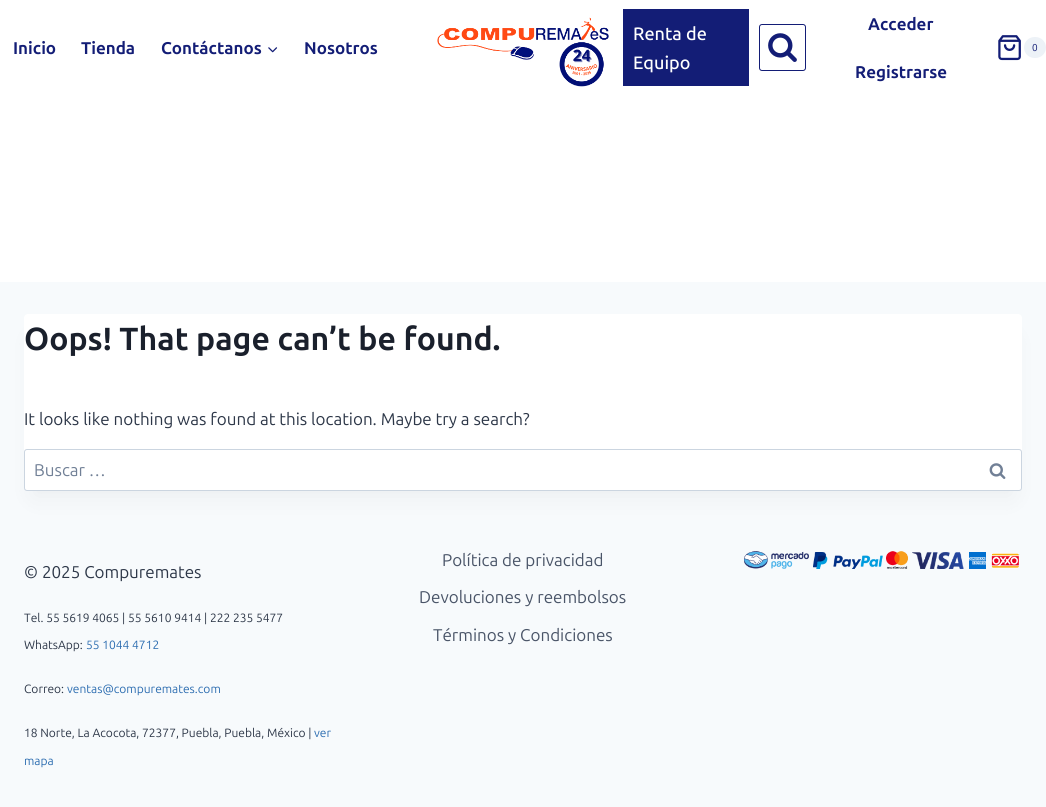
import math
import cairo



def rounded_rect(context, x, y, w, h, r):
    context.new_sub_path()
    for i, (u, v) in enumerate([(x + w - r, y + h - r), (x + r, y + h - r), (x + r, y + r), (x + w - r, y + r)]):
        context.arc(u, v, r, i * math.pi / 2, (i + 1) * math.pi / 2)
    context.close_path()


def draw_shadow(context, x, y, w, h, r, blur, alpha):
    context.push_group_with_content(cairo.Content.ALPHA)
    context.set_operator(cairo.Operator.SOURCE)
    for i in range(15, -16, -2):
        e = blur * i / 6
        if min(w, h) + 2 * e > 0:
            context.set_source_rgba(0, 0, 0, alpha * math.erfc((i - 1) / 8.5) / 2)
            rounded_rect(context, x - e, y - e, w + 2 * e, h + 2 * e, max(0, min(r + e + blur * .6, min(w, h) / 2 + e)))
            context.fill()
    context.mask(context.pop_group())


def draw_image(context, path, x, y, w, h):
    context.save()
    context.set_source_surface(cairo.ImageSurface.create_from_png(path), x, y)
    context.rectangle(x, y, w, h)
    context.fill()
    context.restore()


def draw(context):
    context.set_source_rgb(247 / 255, 250 / 255, 252 / 255)
    context.paint()
    context.set_source_rgb(1, 1, 1)
    context.rectangle(0, 0, 1046, 282)
    context.fill()
    draw_image(context, "images/1.png", 268, 47, 10, 6)
    draw_image(context, "images/2.png", 437, 17, 172, 70)
    context.set_source_rgb(19 / 255, 29 / 255, 118 / 255)
    context.rectangle(623, 9, 126, 77)
    context.fill()
    rounded_rect(context, 759.5, 24.5, 46, 46, 2.5)
    context.set_line_width(1)
    context.stroke()
    draw_image(context, "images/3.png", 768, 33, 29, 29)
    draw_image(context, "images/4.png", 998, 35, 23, 26)
    context.set_source_rgb(237 / 255, 242 / 255, 247 / 255)
    rounded_rect(context, 1024, 37, 22, 21, 10.5)
    context.fill()
    context.set_source_rgb(0, 0, 0)
    draw_shadow(context, 34, 339, 978, 157, 0, 12.5, 0.05)
    context.set_source_rgb(1, 1, 1)
    rounded_rect(context, 24, 314, 998, 177, 4)
    context.fill()
    rounded_rect(context, 24.5, 449.5, 997, 41, 2.5)
    context.fill_preserve()
    context.set_source_rgb(203 / 255, 213 / 255, 224 / 255)
    context.stroke()
    draw_image(context, "images/5.png", 989, 463, 17, 16)
    draw_image(context, "images/6.png", 744, 551, 276, 18)
    context.select_font_face("Ubuntu", cairo.FontSlant.NORMAL, cairo.FontWeight.BOLD)
    context.set_font_size(17)
    context.set_source_rgb(19 / 255, 29 / 255, 118 / 255)
    context.move_to(13, 54)
    context.show_text("Inicio")
    context.move_to(81, 54)
    context.show_text("Tienda")
    context.move_to(161, 54)
    context.show_text("Contáctanos")
    context.move_to(304, 54)
    context.show_text("Nosotros")
    context.select_font_face("Ubuntu Medium")
    context.set_font_size(18)
    context.set_source_rgb(1, 1, 1)
    context.move_to(633, 40)
    context.show_text("Renta de")
    context.move_to(633, 69)
    context.show_text("Equipo")
    context.select_font_face("Ubuntu", cairo.FontSlant.NORMAL, cairo.FontWeight.BOLD)
    context.set_font_size(17)
    context.set_source_rgb(19 / 255, 29 / 255, 118 / 255)
    context.move_to(868, 30)
    context.show_text("Acceder")
    context.move_to(855, 78)
    context.show_text("Registrarse")
    context.select_font_face("Ubuntu")
    context.set_font_size(10)
    context.move_to(1032, 51)
    context.show_text("0")
    context.select_font_face("Ubuntu", cairo.FontSlant.NORMAL, cairo.FontWeight.BOLD)
    context.set_font_size(32)
    context.set_source_rgb(26 / 255, 32 / 255, 44 / 255)
    context.move_to(24, 350)
    context.show_text("Oops! That page can’t be found.")
    context.select_font_face("Ubuntu")
    context.set_font_size(17)
    context.set_source_rgb(45 / 255, 55 / 255, 72 / 255)
    context.move_to(24, 425)
    context.show_text("It looks like nothing was found at this location. Maybe try a search?")
    context.set_source_rgb(113 / 255, 128 / 255, 150 / 255)
    context.move_to(34, 476)
    context.show_text("Buscar …")
    context.set_source_rgb(45 / 255, 55 / 255, 72 / 255)
    context.move_to(24, 578)
    context.show_text("© 2025 Compuremates")
    context.set_font_size(12)
    context.move_to(24, 622)
    context.show_text("Tel. 55 5619 4065 | 55 5610 9414 | 222 235 5477")
    context.move_to(24, 649)
    context.show_text("WhatsApp:")
    context.set_source_rgb(43 / 255, 108 / 255, 176 / 255)
    context.move_to(86, 649)
    context.show_text("55 1044 4712")
    context.set_source_rgb(45 / 255, 55 / 255, 72 / 255)
    context.move_to(24, 693)
    context.show_text("Correo:")
    context.set_source_rgb(43 / 255, 108 / 255, 176 / 255)
    context.move_to(67, 693)
    context.show_text("ventas@compuremates.com")
    context.set_source_rgb(45 / 255, 55 / 255, 72 / 255)
    context.move_to(24, 737)
    context.show_text("18 Norte, La Acocota, 72377, Puebla, Puebla, México |")
    context.set_source_rgb(43 / 255, 108 / 255, 176 / 255)
    context.move_to(314, 737)
    context.show_text("ver")
    context.move_to(24, 765)
    context.show_text("mapa")
    context.set_font_size(17)
    context.set_source_rgb(74 / 255, 85 / 255, 104 / 255)
    context.move_to(442, 566)
    context.show_text("Política de privacidad")
    context.move_to(419, 603)
    context.show_text("Devoluciones y reembolsos")
    context.move_to(433, 641)
    context.show_text("Términos y Condiciones")


surface = cairo.ImageSurface(cairo.Format.RGB24, 1046, 807)
context = cairo.Context(surface)
options = cairo.FontOptions()
options.set_hint_metrics(cairo.HintMetrics.OFF)
options.set_hint_style(cairo.HintStyle.NONE)
context.set_font_options(options)
context.set_miter_limit(4)
draw(context)
surface.write_to_png("out.png")
